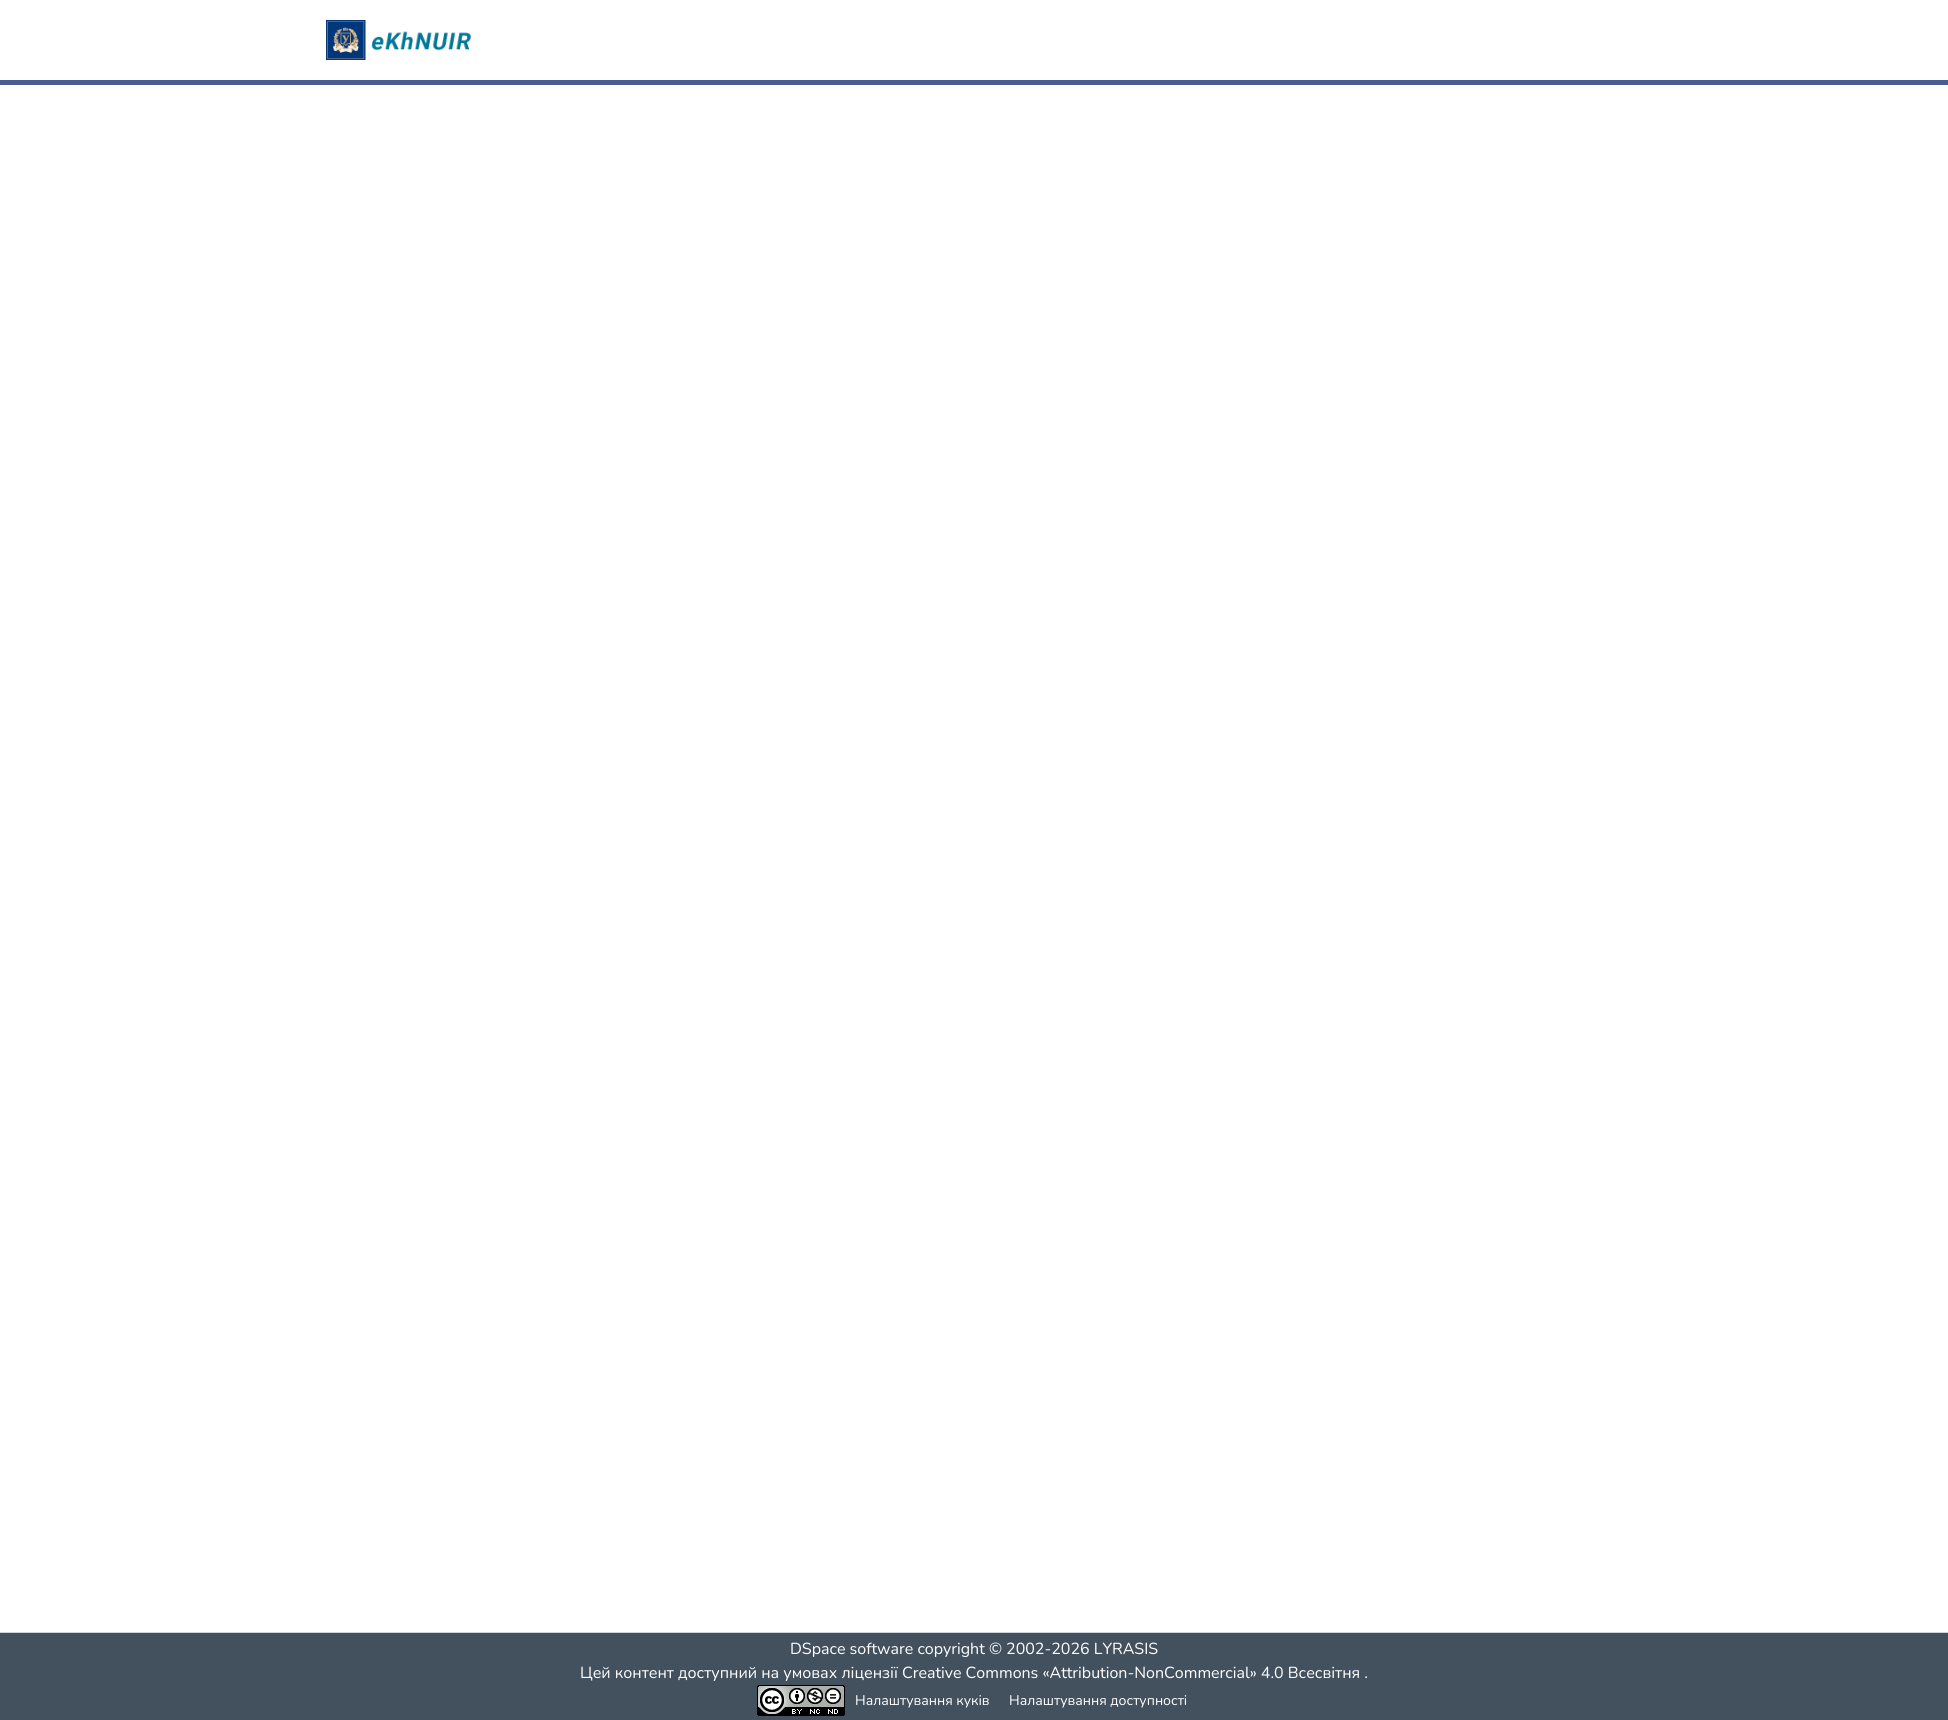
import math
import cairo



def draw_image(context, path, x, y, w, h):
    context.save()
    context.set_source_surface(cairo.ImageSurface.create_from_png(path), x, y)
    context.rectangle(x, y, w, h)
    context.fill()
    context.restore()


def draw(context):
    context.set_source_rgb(1, 1, 1)
    context.paint()
    context.set_source_rgb(72 / 255, 93 / 255, 145 / 255)
    context.rectangle(0, 80, 1948, 5)
    context.fill()
    draw_image(context, "images/1.png", 326, 20, 145, 40)
    context.set_source_rgb(67 / 255, 81 / 255, 95 / 255)
    context.rectangle(0, 1633, 1948, 87)
    context.fill()
    context.set_source_rgb(206 / 255, 212 / 255, 218 / 255)
    context.rectangle(0, 1632, 1948, 1)
    context.fill()
    draw_image(context, "images/2.png", 757, 1685, 88, 31)
    context.set_source_rgb(73 / 255, 80 / 255, 87 / 255)
    context.rectangle(999, 1689, 1, 23)
    context.fill()
    context.select_font_face("Nunito")
    context.set_font_size(16)
    context.set_source_rgb(1, 1, 1)
    context.move_to(790, 1654)
    context.show_text("DSpace software copyright © 2002-2026 LYRASIS")
    context.move_to(580, 1678)
    context.show_text("Цей контент доступний на умовах ліцензії Creative Commons «Attribution-NonCommercial» 4.0 Всесвітня .")
    context.set_font_size(14)
    context.move_to(855, 1705)
    context.show_text("Налаштування куків")
    context.move_to(1009, 1705)
    context.show_text("Налаштування доступності")


surface = cairo.ImageSurface(cairo.Format.RGB24, 1948, 1720)
context = cairo.Context(surface)
options = cairo.FontOptions()
options.set_hint_metrics(cairo.HintMetrics.OFF)
options.set_hint_style(cairo.HintStyle.NONE)
context.set_font_options(options)
context.set_miter_limit(4)
draw(context)
surface.write_to_png("out.png")
